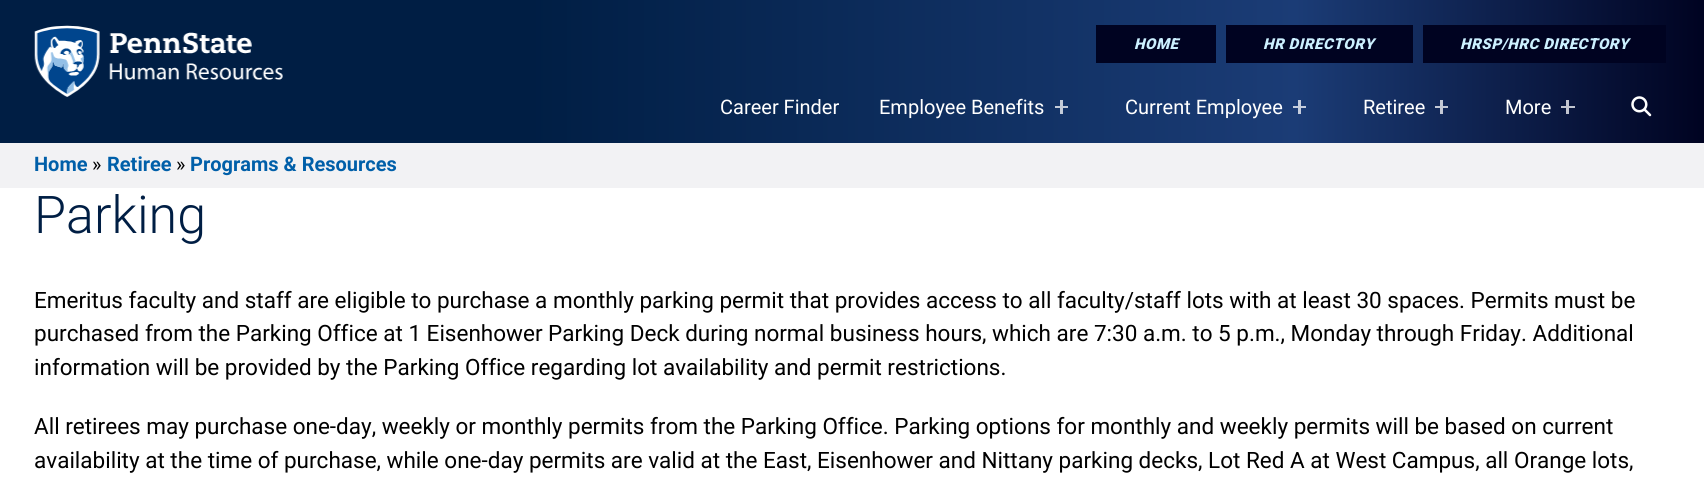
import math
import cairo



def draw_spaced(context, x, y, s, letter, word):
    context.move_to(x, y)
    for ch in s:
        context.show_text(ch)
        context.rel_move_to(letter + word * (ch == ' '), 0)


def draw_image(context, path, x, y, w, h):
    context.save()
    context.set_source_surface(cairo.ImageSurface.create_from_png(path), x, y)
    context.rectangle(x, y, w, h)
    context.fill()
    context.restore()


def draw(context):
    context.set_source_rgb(1, 1, 1)
    context.paint()
    gradient = cairo.LinearGradient(0, 71, 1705, 71)
    gradient.add_color_stop_rgba(0, 0, 30 / 255, 68 / 255, 1)
    gradient.add_color_stop_rgba(0.31, 0, 30 / 255, 68 / 255, 1)
    gradient.add_color_stop_rgba(0.76, 27 / 255, 60 / 255, 118 / 255, 1)
    gradient.add_color_stop_rgba(1, 0, 3 / 255, 33 / 255, 1)
    context.set_source(gradient)
    context.rectangle(0, 0, 1704, 143)
    context.fill()
    gradient = cairo.LinearGradient(0, 71, 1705, 71)
    gradient.add_color_stop_rgba(0, 191 / 255, 199 / 255, 208 / 255, 1)
    gradient.add_color_stop_rgba(0.31, 191 / 255, 199 / 255, 208 / 255, 1)
    gradient.add_color_stop_rgba(0.76, 198 / 255, 206 / 255, 221 / 255, 1)
    gradient.add_color_stop_rgba(1, 191 / 255, 192 / 255, 200 / 255, 1)
    context.set_source(gradient)
    context.rectangle(1561, 106, 14, 2)
    context.fill()
    context.rectangle(1435, 106, 13, 2)
    context.fill()
    draw_image(context, "images/1.png", 34, 25, 249, 72)
    context.set_source_rgb(0, 3 / 255, 33 / 255)
    context.rectangle(1096, 25, 120, 38)
    context.fill()
    context.rectangle(1226, 25, 187, 38)
    context.fill()
    context.rectangle(1423, 25, 243, 38)
    context.fill()
    context.set_source_rgb(196 / 255, 204 / 255, 217 / 255)
    context.rectangle(1055, 106, 13, 2)
    context.fill()
    context.rectangle(1060, 100, 3, 14)
    context.fill()
    context.set_source_rgb(198 / 255, 206 / 255, 221 / 255)
    context.rectangle(1293, 106, 13, 2)
    context.fill()
    context.rectangle(1298, 100, 3, 14)
    context.fill()
    context.set_source_rgb(196 / 255, 201 / 255, 213 / 255)
    context.rectangle(1440, 100, 3, 14)
    context.fill()
    context.set_source_rgb(194 / 255, 197 / 255, 207 / 255)
    context.rectangle(1566, 100, 3, 14)
    context.fill()
    draw_image(context, "images/2.png", 1631, 96, 21, 21)
    context.set_source_rgb(242 / 255, 242 / 255, 244 / 255)
    context.rectangle(0, 143, 1704, 45)
    context.fill()
    context.select_font_face("Roboto Black", cairo.FontSlant.ITALIC)
    context.set_font_size(15)
    context.set_source_rgb(204 / 255, 240 / 255, 1)
    draw_spaced(context, 1134, 49, "HOME", 0.5, 0)
    draw_spaced(context, 1263, 49, "HR DIRECTORY", 0.5, 0)
    draw_spaced(context, 1460, 49, "HRSP/HRC DIRECTORY", 0.5, 0)
    context.select_font_face("Roboto")
    context.set_font_size(20)
    context.set_source_rgb(1, 1, 1)
    context.move_to(720, 114)
    context.show_text("Career Finder")
    context.move_to(879, 114)
    context.show_text("Employee Benefits")
    context.move_to(1125, 114)
    context.show_text("Current Employee")
    context.move_to(1363, 114)
    context.show_text("Retiree")
    context.move_to(1505, 114)
    context.show_text("More")
    context.select_font_face("Roboto", cairo.FontSlant.NORMAL, cairo.FontWeight.BOLD)
    context.set_source_rgb(0, 95 / 255, 169 / 255)
    context.move_to(34, 171)
    context.show_text("Home")
    context.select_font_face("Roboto")
    context.set_source_rgb(0, 0, 0)
    context.move_to(92, 171)
    context.show_text("»")
    context.select_font_face("Roboto", cairo.FontSlant.NORMAL, cairo.FontWeight.BOLD)
    context.set_source_rgb(0, 95 / 255, 169 / 255)
    context.move_to(107, 171)
    context.show_text("Retiree")
    context.select_font_face("Roboto")
    context.set_source_rgb(0, 0, 0)
    context.move_to(176, 171)
    context.show_text("»")
    context.select_font_face("Roboto", cairo.FontSlant.NORMAL, cairo.FontWeight.BOLD)
    context.set_source_rgb(0, 95 / 255, 169 / 255)
    context.move_to(190, 171)
    context.show_text("Programs & Resources")
    context.select_font_face("Roboto Light")
    context.set_font_size(52)
    context.set_source_rgb(0, 30 / 255, 68 / 255)
    context.move_to(34, 233)
    context.show_text("Parking")
    context.select_font_face("Roboto")
    context.set_font_size(22.5)
    context.set_source_rgb(0, 0, 0)
    context.move_to(34, 308)
    context.show_text("Emeritus faculty and staff are eligible to purchase a monthly parking permit that provides access to all faculty/staff lots with at least 30 spaces. Permits must be")
    context.move_to(34, 341)
    context.show_text("purchased from the Parking Office at 1 Eisenhower Parking Deck during normal business hours, which are 7:30 a.m. to 5 p.m., Monday through Friday. Additional")
    context.move_to(34, 375)
    context.show_text("information will be provided by the Parking Office regarding lot availability and permit restrictions.")
    context.move_to(34, 434)
    context.show_text("All retirees may purchase one-day, weekly or monthly permits from the Parking Office. Parking options for monthly and weekly permits will be based on current")
    context.move_to(34, 468)
    context.show_text("availability at the time of purchase, while one-day permits are valid at the East, Eisenhower and Nittany parking decks, Lot Red A at West Campus, all Orange lots,")


surface = cairo.ImageSurface(cairo.Format.RGB24, 1704, 477)
context = cairo.Context(surface)
options = cairo.FontOptions()
options.set_hint_metrics(cairo.HintMetrics.OFF)
options.set_hint_style(cairo.HintStyle.NONE)
context.set_font_options(options)
context.set_miter_limit(4)
draw(context)
surface.write_to_png("out.png")
